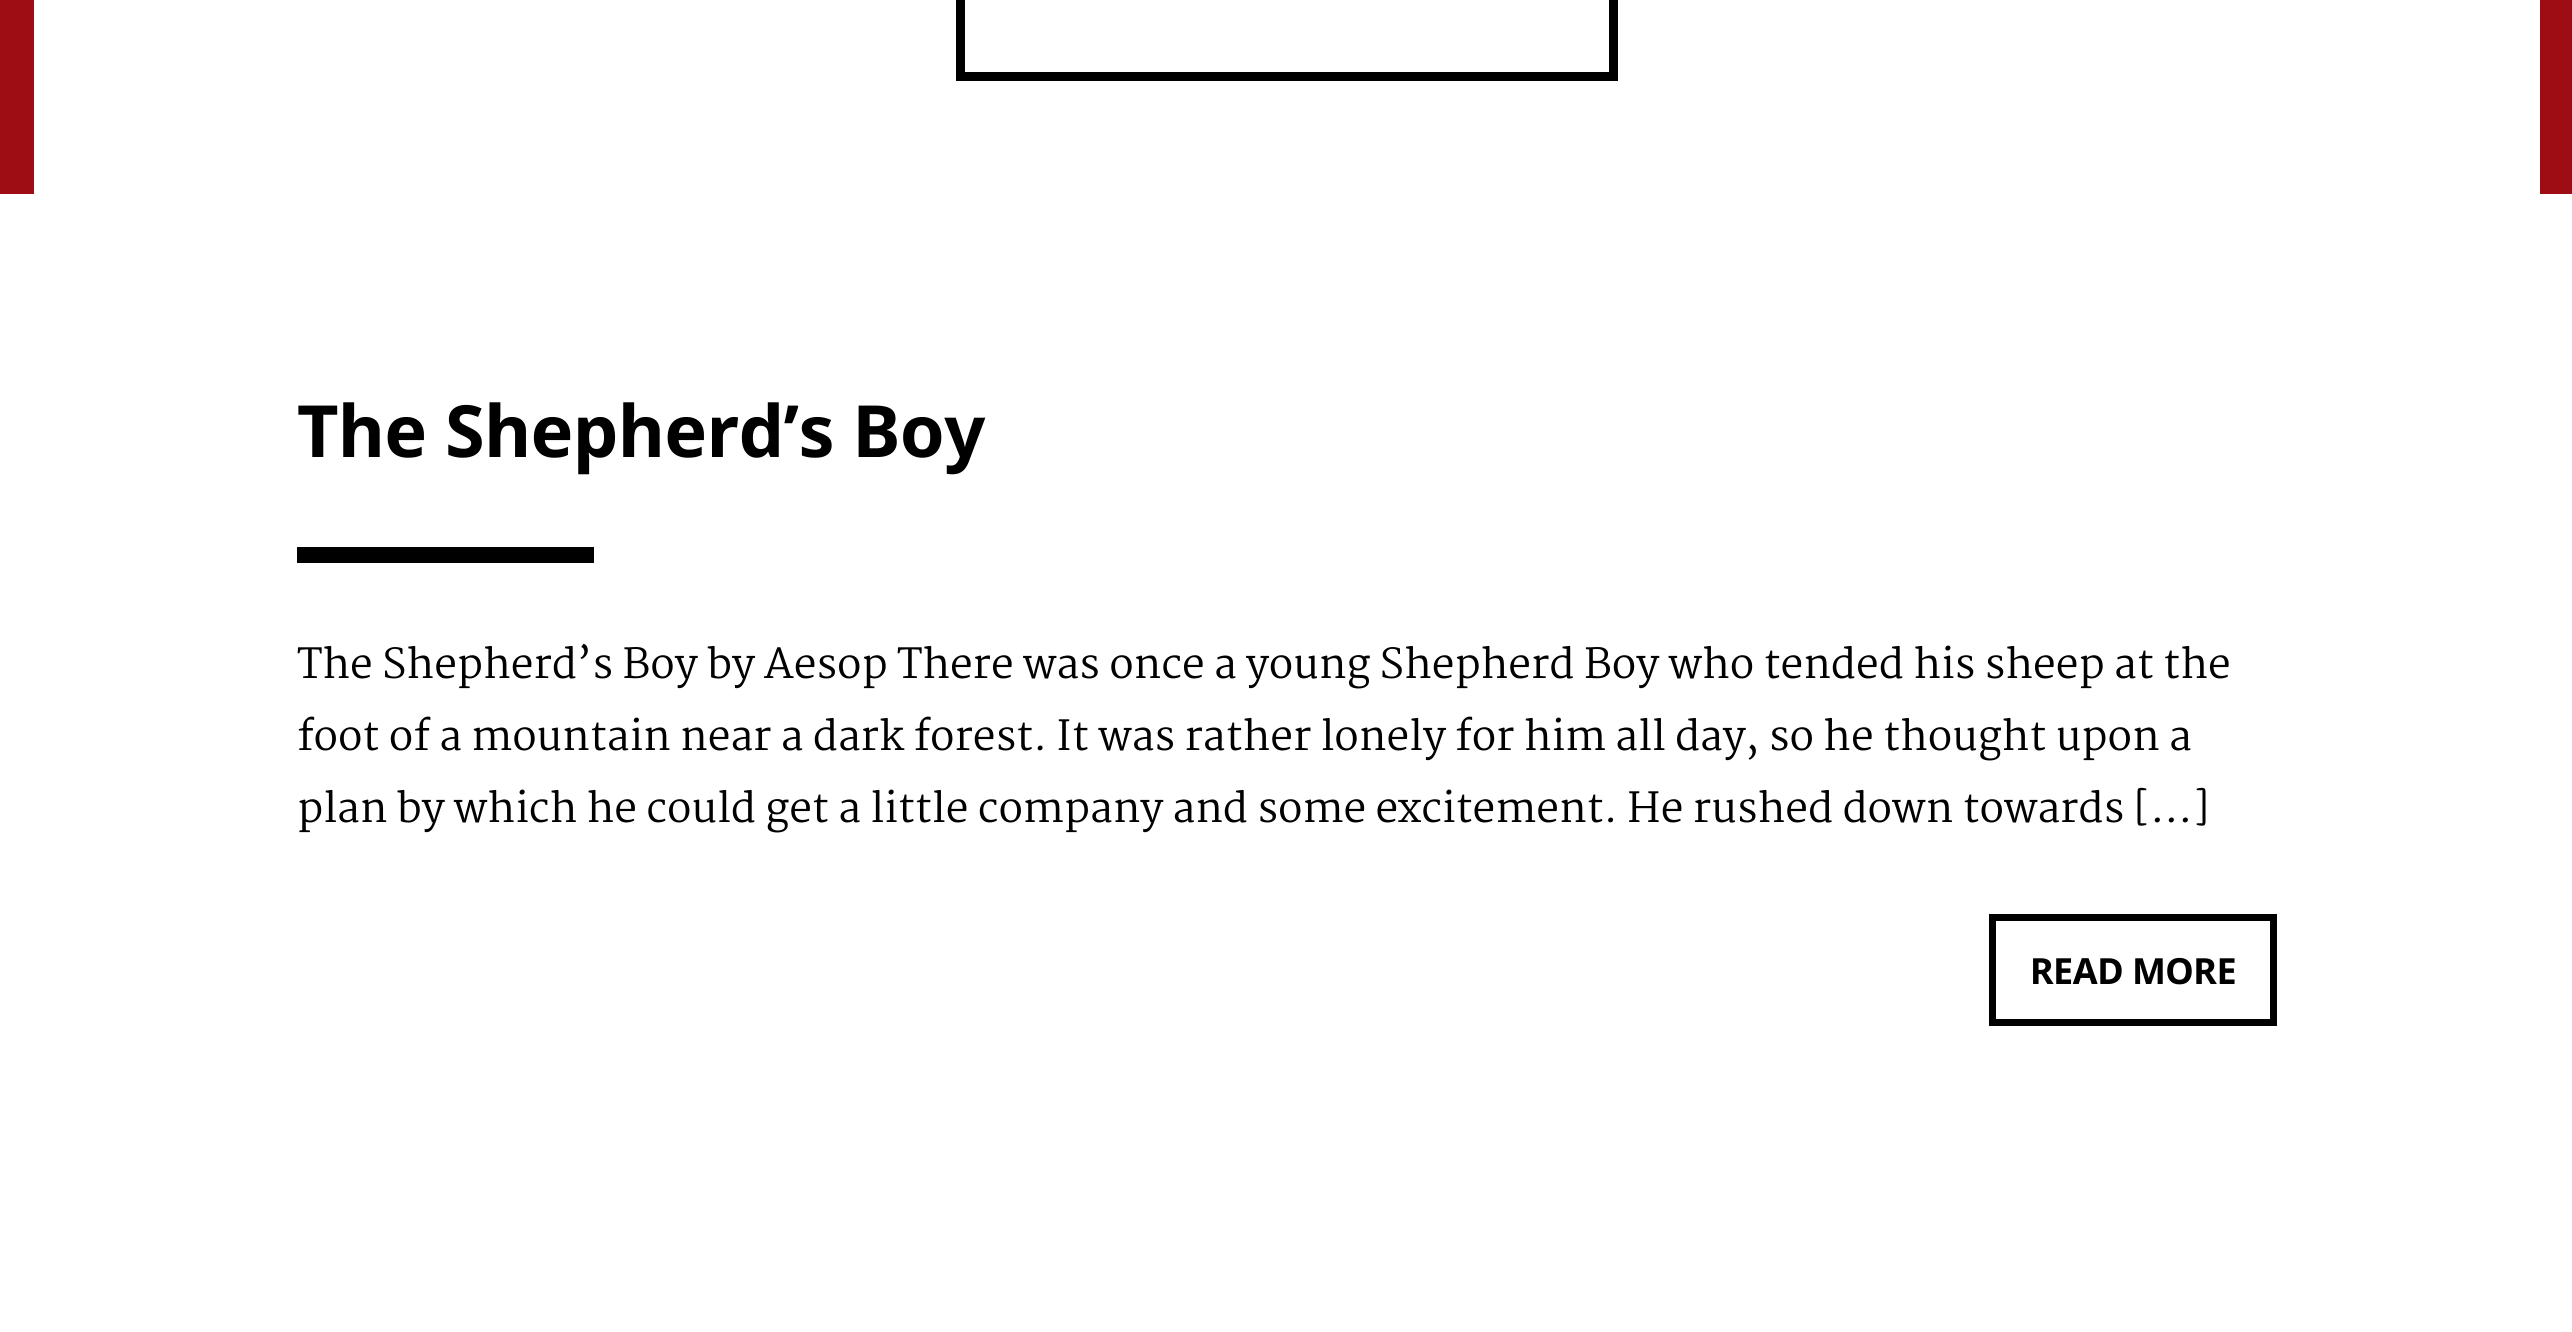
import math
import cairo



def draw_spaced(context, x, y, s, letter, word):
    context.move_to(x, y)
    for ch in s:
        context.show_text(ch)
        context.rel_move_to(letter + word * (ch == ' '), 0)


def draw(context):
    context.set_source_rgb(1, 1, 1)
    context.paint()
    context.rectangle(960.5, -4.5, 653, 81)
    context.set_source_rgb(0, 0, 0)
    context.set_line_width(9)
    context.stroke()
    context.set_source_rgb(158 / 255, 13 / 255, 19 / 255)
    context.rectangle(0, 0, 34, 194)
    context.fill()
    context.rectangle(2540, 0, 32, 194)
    context.fill()
    context.set_source_rgb(0, 0, 0)
    context.rectangle(297, 547, 297, 16)
    context.fill()
    context.rectangle(1992.5, 917.5, 281, 105)
    context.set_line_width(7)
    context.stroke()
    context.select_font_face("Noto Sans", cairo.FontSlant.NORMAL, cairo.FontWeight.BOLD)
    context.set_font_size(72)
    draw_spaced(context, 297, 457, "The Shepherd’s Boy", -0.5, 0)
    context.select_font_face("Martel")
    context.set_font_size(40.5)
    context.move_to(297, 678)
    context.show_text("The Shepherd’s Boy by Aesop There was once a young Shepherd Boy who tended his sheep at the")
    context.move_to(297, 750)
    context.show_text("foot of a mountain near a dark forest. It was rather lonely for him all day, so he thought upon a")
    context.move_to(297, 822)
    context.show_text("plan by which he could get a little company and some excitement. He rushed down towards […]")
    context.select_font_face("Noto Sans", cairo.FontSlant.NORMAL, cairo.FontWeight.BOLD)
    context.set_font_size(36)
    draw_spaced(context, 2030, 984, "READ MORE", -0.5, 0)


surface = cairo.ImageSurface(cairo.Format.RGB24, 2572, 1332)
context = cairo.Context(surface)
options = cairo.FontOptions()
options.set_hint_metrics(cairo.HintMetrics.OFF)
options.set_hint_style(cairo.HintStyle.NONE)
context.set_font_options(options)
context.set_miter_limit(4)
draw(context)
surface.write_to_png("out.png")
